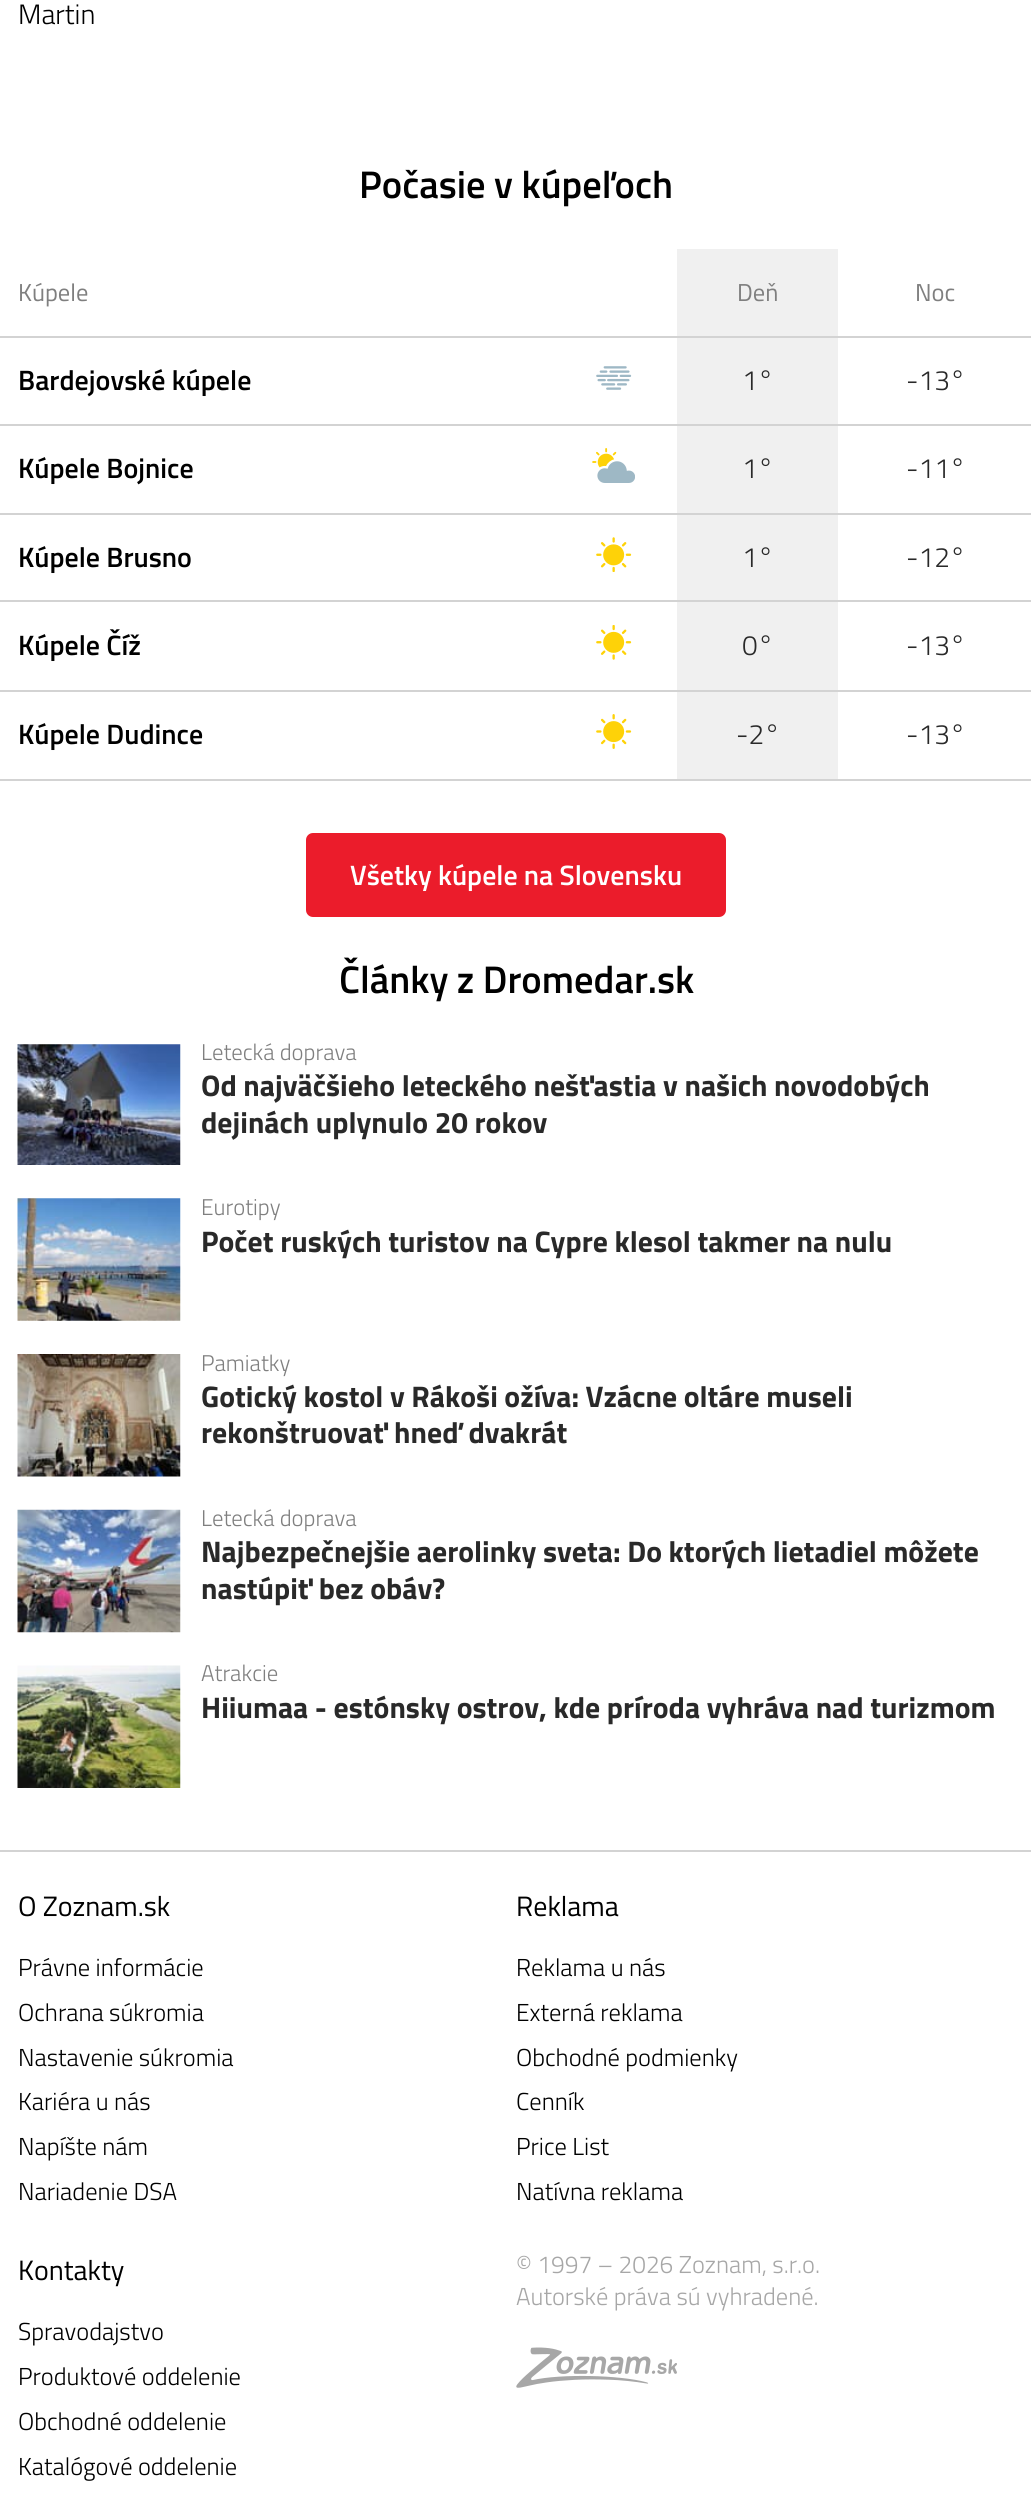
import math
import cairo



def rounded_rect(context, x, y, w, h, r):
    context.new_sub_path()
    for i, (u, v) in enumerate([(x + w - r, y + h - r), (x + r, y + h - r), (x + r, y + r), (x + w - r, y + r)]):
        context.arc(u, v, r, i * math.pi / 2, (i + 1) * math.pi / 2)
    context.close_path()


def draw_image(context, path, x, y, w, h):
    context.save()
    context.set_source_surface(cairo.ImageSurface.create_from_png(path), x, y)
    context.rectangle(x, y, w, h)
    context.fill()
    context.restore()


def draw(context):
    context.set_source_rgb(1, 1, 1)
    context.paint()
    context.set_source_rgb(240 / 255, 240 / 255, 240 / 255)
    context.rectangle(677, 249, 161, 87)
    context.fill()
    context.set_source_rgb(211 / 255, 211 / 255, 211 / 255)
    context.rectangle(0, 336, 1031, 2)
    context.fill()
    draw_image(context, "images/1.png", 596, 366, 36, 24)
    context.set_source_rgb(240 / 255, 240 / 255, 240 / 255)
    context.rectangle(677, 338, 161, 86)
    context.fill()
    context.set_source_rgb(211 / 255, 211 / 255, 211 / 255)
    context.rectangle(0, 424, 1031, 2)
    context.fill()
    draw_image(context, "images/2.png", 592, 448, 43, 35)
    context.set_source_rgb(240 / 255, 240 / 255, 240 / 255)
    context.rectangle(677, 426, 161, 87)
    context.fill()
    context.set_source_rgb(211 / 255, 211 / 255, 211 / 255)
    context.rectangle(0, 513, 1031, 2)
    context.fill()
    draw_image(context, "images/3.png", 596, 537, 36, 35)
    context.set_source_rgb(240 / 255, 240 / 255, 240 / 255)
    context.rectangle(677, 515, 161, 85)
    context.fill()
    context.set_source_rgb(211 / 255, 211 / 255, 211 / 255)
    context.rectangle(0, 600, 1031, 2)
    context.fill()
    draw_image(context, "images/4.png", 596, 625, 36, 35)
    context.set_source_rgb(240 / 255, 240 / 255, 240 / 255)
    context.rectangle(677, 602, 161, 88)
    context.fill()
    context.set_source_rgb(211 / 255, 211 / 255, 211 / 255)
    context.rectangle(0, 690, 1031, 2)
    context.fill()
    draw_image(context, "images/5.png", 596, 714, 36, 35)
    context.set_source_rgb(240 / 255, 240 / 255, 240 / 255)
    context.rectangle(677, 692, 161, 87)
    context.fill()
    context.set_source_rgb(211 / 255, 211 / 255, 211 / 255)
    context.rectangle(0, 779, 1031, 2)
    context.fill()
    context.set_source_rgb(235 / 255, 28 / 255, 43 / 255)
    rounded_rect(context, 306, 833, 420, 84, 7)
    context.fill()
    draw_image(context, "images/6.png", 17, 1044, 164, 121)
    draw_image(context, "images/7.png", 17, 1198, 164, 123)
    draw_image(context, "images/8.png", 17, 1354, 164, 123)
    draw_image(context, "images/9.png", 17, 1509, 164, 124)
    draw_image(context, "images/10.png", 17, 1665, 164, 123)
    context.set_source_rgb(211 / 255, 211 / 255, 211 / 255)
    context.rectangle(0, 1850, 1031, 2)
    context.fill()
    draw_image(context, "images/11.png", 516, 2347, 161, 41)
    context.select_font_face("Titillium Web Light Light")
    context.set_font_size(28)
    context.set_source_rgb(0, 0, 0)
    context.move_to(18, 24)
    context.show_text("Martin")
    context.select_font_face("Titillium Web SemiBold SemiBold")
    context.set_font_size(38.5)
    context.move_to(359, 198)
    context.show_text("Počasie v kúpeľoch")
    context.select_font_face("Titillium Web")
    context.set_font_size(24.5)
    context.set_source_rgb(127 / 255, 127 / 255, 127 / 255)
    context.move_to(18, 301)
    context.show_text("Kúpele")
    context.move_to(737, 301)
    context.show_text("Deň")
    context.move_to(915, 301)
    context.show_text("Noc")
    context.select_font_face("Titillium Web SemiBold SemiBold")
    context.set_font_size(28)
    context.set_source_rgb(0, 0, 0)
    context.move_to(18, 390)
    context.show_text("Bardejovské kúpele")
    context.select_font_face("Titillium Web Light Light")
    context.set_source_rgb(41 / 255, 41 / 255, 41 / 255)
    context.move_to(742, 390)
    context.show_text("1°")
    context.move_to(906, 390)
    context.show_text("-13°")
    context.select_font_face("Titillium Web SemiBold SemiBold")
    context.set_source_rgb(0, 0, 0)
    context.move_to(18, 478)
    context.show_text("Kúpele Bojnice")
    context.select_font_face("Titillium Web Light Light")
    context.set_source_rgb(41 / 255, 41 / 255, 41 / 255)
    context.move_to(742, 478)
    context.show_text("1°")
    context.move_to(906, 478)
    context.show_text("-11°")
    context.select_font_face("Titillium Web SemiBold SemiBold")
    context.set_source_rgb(0, 0, 0)
    context.move_to(18, 567)
    context.show_text("Kúpele Brusno")
    context.select_font_face("Titillium Web Light Light")
    context.set_source_rgb(41 / 255, 41 / 255, 41 / 255)
    context.move_to(742, 567)
    context.show_text("1°")
    context.move_to(906, 567)
    context.show_text("-12°")
    context.select_font_face("Titillium Web SemiBold SemiBold")
    context.set_source_rgb(0, 0, 0)
    context.move_to(18, 655)
    context.show_text("Kúpele Číž")
    context.select_font_face("Titillium Web Light Light")
    context.set_source_rgb(41 / 255, 41 / 255, 41 / 255)
    context.move_to(742, 655)
    context.show_text("0°")
    context.move_to(906, 655)
    context.show_text("-13°")
    context.select_font_face("Titillium Web SemiBold SemiBold")
    context.set_source_rgb(0, 0, 0)
    context.move_to(18, 744)
    context.show_text("Kúpele Dudince")
    context.select_font_face("Titillium Web Light Light")
    context.set_source_rgb(41 / 255, 41 / 255, 41 / 255)
    context.move_to(736, 744)
    context.show_text("-2°")
    context.move_to(906, 744)
    context.show_text("-13°")
    context.select_font_face("Titillium Web SemiBold SemiBold")
    context.set_source_rgb(1, 1, 1)
    context.move_to(350, 885)
    context.show_text("Všetky kúpele na Slovensku")
    context.set_font_size(38.5)
    context.set_source_rgb(0, 0, 0)
    context.move_to(339, 993)
    context.show_text("Články z Dromedar.sk")
    context.select_font_face("Titillium Web Light Light")
    context.set_font_size(22.75)
    context.set_source_rgb(127 / 255, 127 / 255, 127 / 255)
    context.move_to(201, 1060)
    context.show_text("Letecká doprava")
    context.select_font_face("Titillium Web", cairo.FontSlant.NORMAL, cairo.FontWeight.BOLD)
    context.set_font_size(29.75)
    context.set_source_rgb(41 / 255, 41 / 255, 41 / 255)
    context.move_to(201, 1096)
    context.show_text("Od najväčšieho leteckého nešťastia v našich novodobých")
    context.move_to(201, 1133)
    context.show_text("dejinách uplynulo 20 rokov")
    context.select_font_face("Titillium Web Light Light")
    context.set_font_size(22.75)
    context.set_source_rgb(127 / 255, 127 / 255, 127 / 255)
    context.move_to(201, 1215)
    context.show_text("Eurotipy")
    context.select_font_face("Titillium Web", cairo.FontSlant.NORMAL, cairo.FontWeight.BOLD)
    context.set_font_size(29.75)
    context.set_source_rgb(41 / 255, 41 / 255, 41 / 255)
    context.move_to(201, 1252)
    context.show_text("Počet ruských turistov na Cypre klesol takmer na nulu")
    context.select_font_face("Titillium Web Light Light")
    context.set_font_size(22.75)
    context.set_source_rgb(127 / 255, 127 / 255, 127 / 255)
    context.move_to(201, 1371)
    context.show_text("Pamiatky")
    context.select_font_face("Titillium Web", cairo.FontSlant.NORMAL, cairo.FontWeight.BOLD)
    context.set_font_size(29.75)
    context.set_source_rgb(41 / 255, 41 / 255, 41 / 255)
    context.move_to(201, 1407)
    context.show_text("Gotický kostol v Rákoši ožíva: Vzácne oltáre museli")
    context.move_to(201, 1443)
    context.show_text("rekonštruovať hneď dvakrát")
    context.select_font_face("Titillium Web Light Light")
    context.set_font_size(22.75)
    context.set_source_rgb(127 / 255, 127 / 255, 127 / 255)
    context.move_to(201, 1526)
    context.show_text("Letecká doprava")
    context.select_font_face("Titillium Web", cairo.FontSlant.NORMAL, cairo.FontWeight.BOLD)
    context.set_font_size(29.75)
    context.set_source_rgb(41 / 255, 41 / 255, 41 / 255)
    context.move_to(201, 1562)
    context.show_text("Najbezpečnejšie aerolinky sveta: Do ktorých lietadiel môžete")
    context.move_to(201, 1599)
    context.show_text("nastúpiť bez obáv?")
    context.select_font_face("Titillium Web Light Light")
    context.set_font_size(22.75)
    context.set_source_rgb(127 / 255, 127 / 255, 127 / 255)
    context.move_to(201, 1681)
    context.show_text("Atrakcie")
    context.select_font_face("Titillium Web", cairo.FontSlant.NORMAL, cairo.FontWeight.BOLD)
    context.set_font_size(29.75)
    context.set_source_rgb(41 / 255, 41 / 255, 41 / 255)
    context.move_to(201, 1718)
    context.show_text("Hiiumaa - estónsky ostrov, kde príroda vyhráva nad turizmom")
    context.select_font_face("Titillium Web")
    context.set_font_size(28)
    context.set_source_rgb(0, 0, 0)
    context.move_to(18, 1916)
    context.show_text("O Zoznam.sk")
    context.select_font_face("Titillium Web Light Light")
    context.set_font_size(24.5)
    context.move_to(18, 1976)
    context.show_text("Právne informácie")
    context.move_to(18, 2021)
    context.show_text("Ochrana súkromia")
    context.move_to(18, 2066)
    context.show_text("Nastavenie súkromia")
    context.move_to(18, 2110)
    context.show_text("Kariéra u nás")
    context.move_to(18, 2155)
    context.show_text("Napíšte nám")
    context.move_to(18, 2200)
    context.show_text("Nariadenie DSA")
    context.select_font_face("Titillium Web")
    context.set_font_size(28)
    context.move_to(516, 1916)
    context.show_text("Reklama")
    context.select_font_face("Titillium Web Light Light")
    context.set_font_size(24.5)
    context.move_to(516, 1976)
    context.show_text("Reklama u nás")
    context.move_to(516, 2021)
    context.show_text("Externá reklama")
    context.move_to(516, 2066)
    context.show_text("Obchodné podmienky")
    context.move_to(516, 2110)
    context.show_text("Cenník")
    context.move_to(516, 2155)
    context.show_text("Price List")
    context.move_to(516, 2200)
    context.show_text("Natívna reklama")
    context.select_font_face("Titillium Web")
    context.set_font_size(28)
    context.move_to(18, 2280)
    context.show_text("Kontakty")
    context.select_font_face("Titillium Web Light Light")
    context.set_font_size(24.5)
    context.move_to(18, 2340)
    context.show_text("Spravodajstvo")
    context.move_to(18, 2385)
    context.show_text("Produktové oddelenie")
    context.move_to(18, 2430)
    context.show_text("Obchodné oddelenie")
    context.move_to(18, 2475)
    context.show_text("Katalógové oddelenie")
    context.set_source_rgb(167 / 255, 167 / 255, 167 / 255)
    context.move_to(516, 2273)
    context.show_text("© 1997 – 2026 Zoznam, s.r.o.")
    context.move_to(516, 2305)
    context.show_text("Autorské práva sú vyhradené.")


surface = cairo.ImageSurface(cairo.Format.RGB24, 1031, 2509)
context = cairo.Context(surface)
options = cairo.FontOptions()
options.set_hint_metrics(cairo.HintMetrics.OFF)
options.set_hint_style(cairo.HintStyle.NONE)
context.set_font_options(options)
context.set_miter_limit(4)
draw(context)
surface.write_to_png("out.png")
